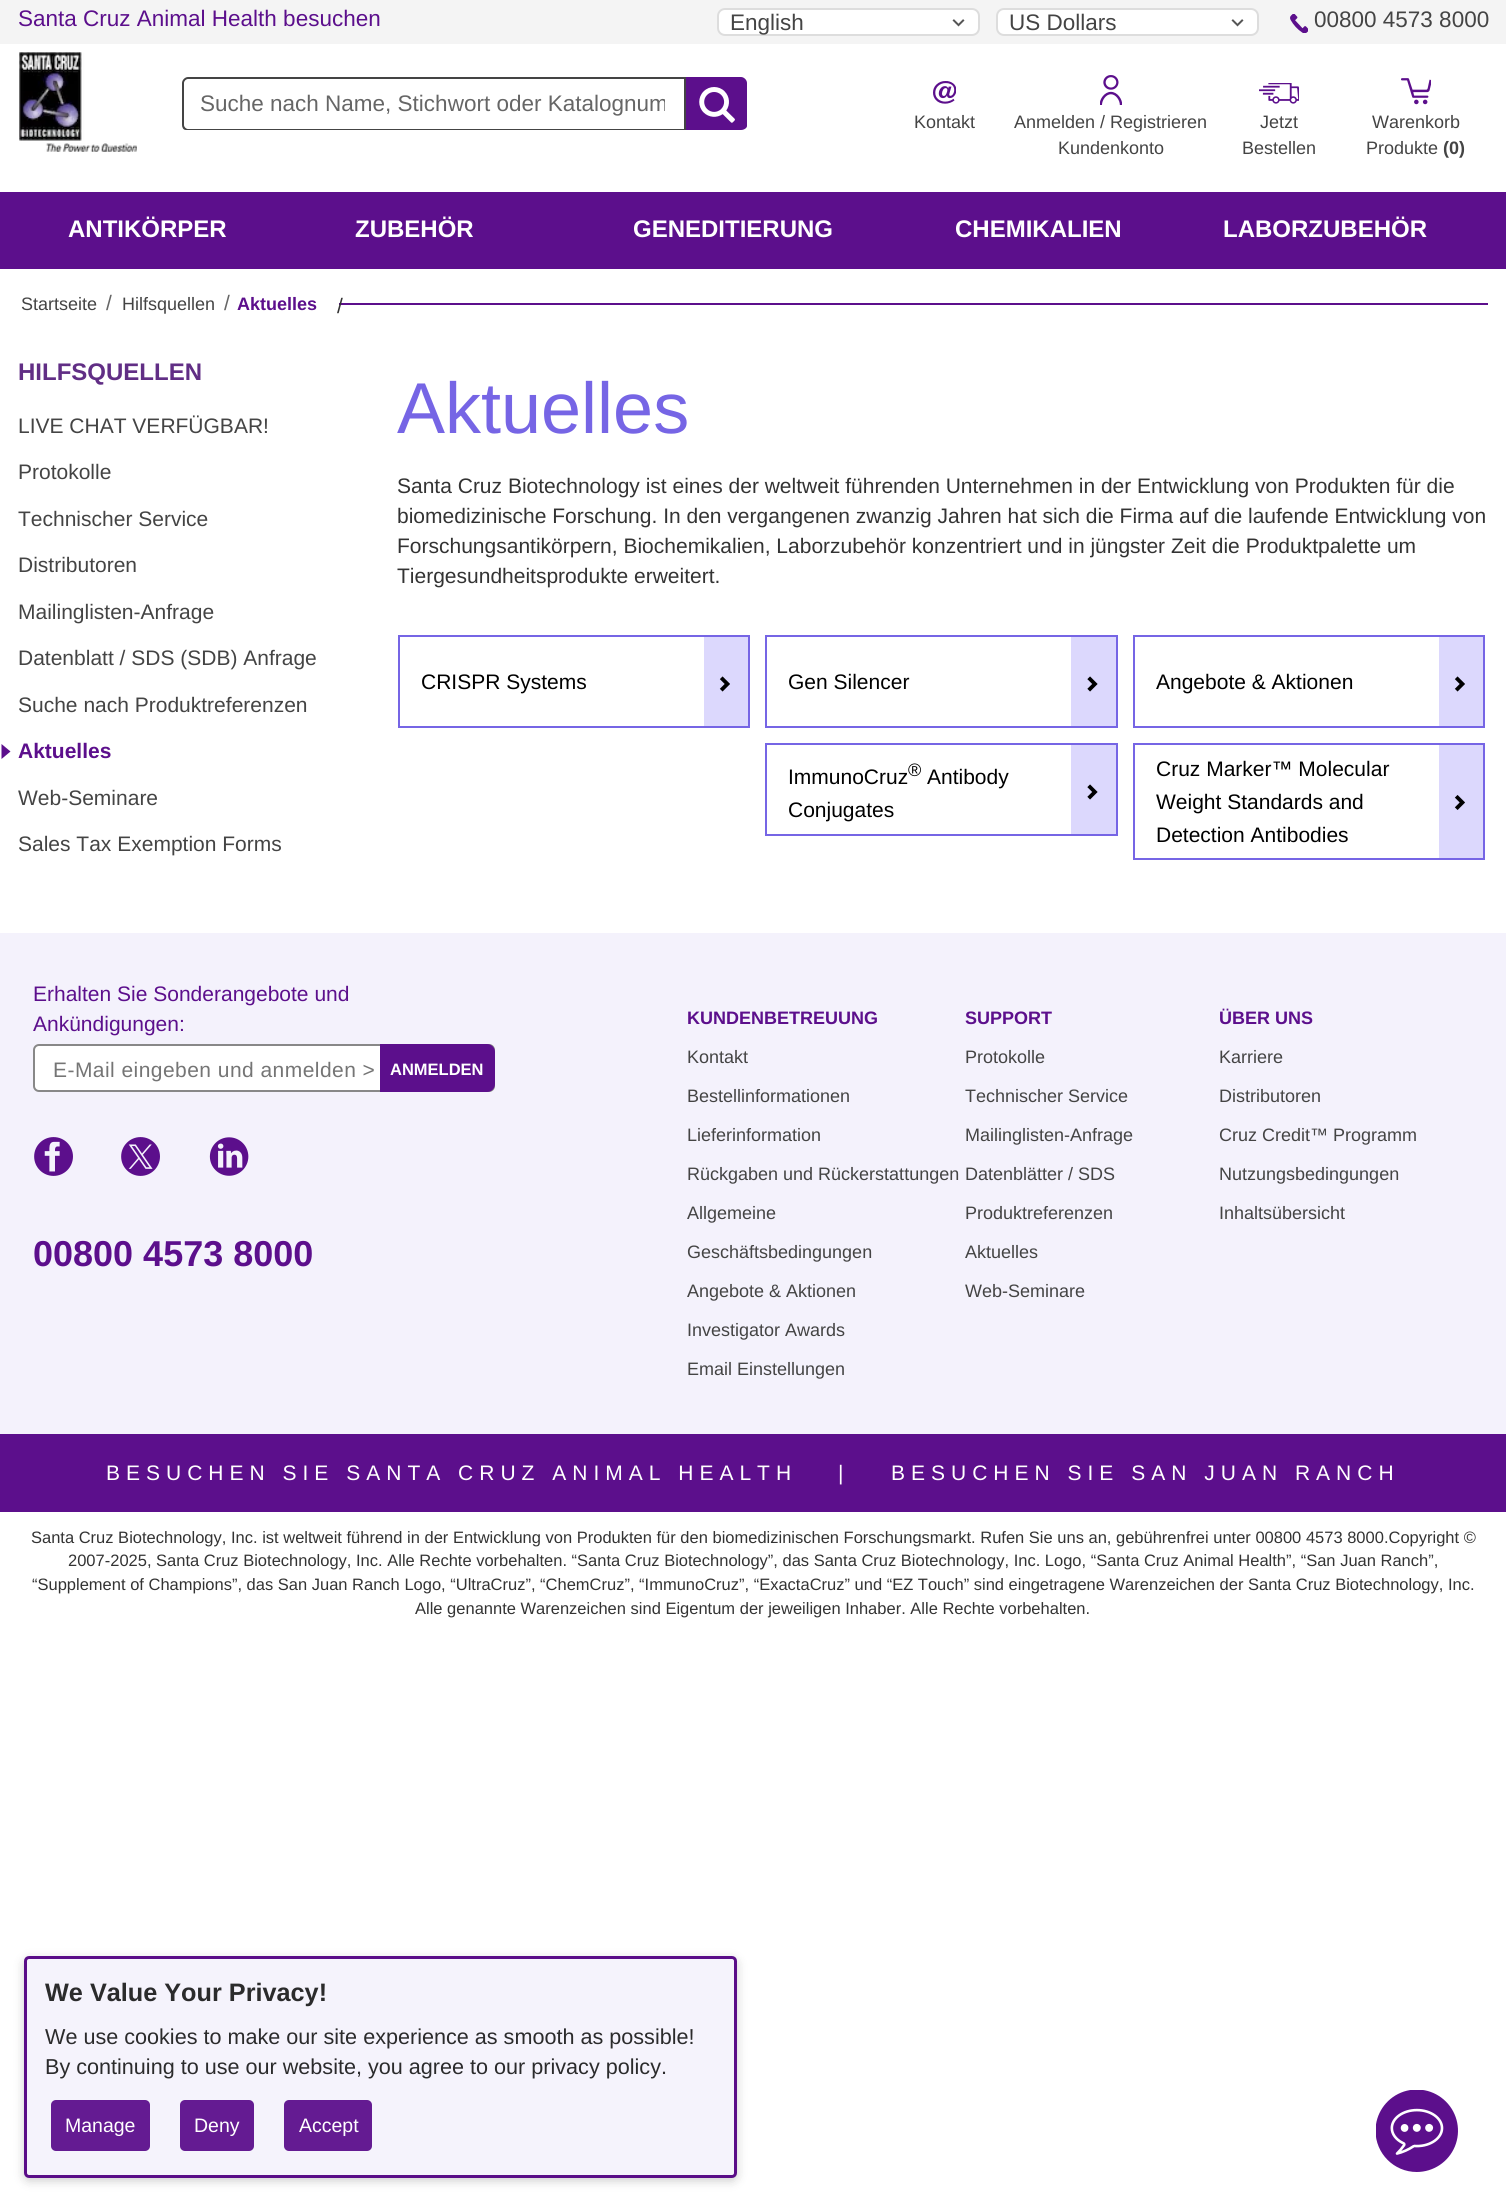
import math
import cairo



def draw_spaced(context, x, y, s, letter, word):
    context.move_to(x, y)
    for ch in s:
        context.show_text(ch)
        context.rel_move_to(letter + word * (ch == ' '), 0)


def rounded_rect(context, x, y, w, h, r):
    context.new_sub_path()
    for i, (u, v) in enumerate([(x + w - r, y + h - r), (x + r, y + h - r), (x + r, y + r), (x + w - r, y + r)]):
        context.arc(u, v, r, i * math.pi / 2, (i + 1) * math.pi / 2)
    context.close_path()


def draw_shadow(context, x, y, w, h, r, blur, alpha):
    context.push_group_with_content(cairo.Content.ALPHA)
    context.set_operator(cairo.Operator.SOURCE)
    for i in range(15, -16, -2):
        e = blur * i / 6
        if min(w, h) + 2 * e > 0:
            context.set_source_rgba(0, 0, 0, alpha * math.erfc((i - 1) / 8.5) / 2)
            rounded_rect(context, x - e, y - e, w + 2 * e, h + 2 * e, max(0, min(r + e + blur * .6, min(w, h) / 2 + e)))
            context.fill()
    context.mask(context.pop_group())


def draw_image(context, path, x, y, w, h):
    context.save()
    context.set_source_surface(cairo.ImageSurface.create_from_png(path), x, y)
    context.rectangle(x, y, w, h)
    context.fill()
    context.restore()


def draw(context):
    context.set_source_rgb(1, 1, 1)
    context.paint()
    context.set_source_rgb(244 / 255, 244 / 255, 244 / 255)
    context.rectangle(0, 0, 1506, 44)
    context.fill()
    context.set_source_rgb(1, 1, 1)
    rounded_rect(context, 718, 9, 261, 26, 7)
    context.fill_preserve()
    context.set_source_rgb(221 / 255, 221 / 255, 221 / 255)
    context.stroke()
    draw_image(context, "images/1.png", 952, 19, 13, 8)
    context.set_source_rgb(1, 1, 1)
    rounded_rect(context, 997, 9, 261, 26, 7)
    context.fill_preserve()
    context.set_source_rgb(221 / 255, 221 / 255, 221 / 255)
    context.stroke()
    draw_image(context, "images/1.png", 1231, 19, 13, 8)
    draw_image(context, "images/2.png", 1290, 14, 18, 19)
    draw_image(context, "images/3.png", 19, 52, 118, 100)
    context.set_source_rgb(68 / 255, 68 / 255, 68 / 255)
    context.set_fill_rule(cairo.FillRule.EVEN_ODD)
    context.new_path()
    context.move_to(188, 77)
    context.line_to(686, 77)
    context.line_to(686, 130)
    context.line_to(186, 130)
    context.curve_to(183, 130, 182, 127, 182, 125)
    context.line_to(182, 83)
    context.curve_to(182, 80, 185, 77, 188, 77)
    context.close_path()
    context.move_to(188, 79)
    context.curve_to(186, 79, 184, 81, 184, 83)
    context.line_to(184, 125)
    context.curve_to(184, 127, 186, 129, 188, 129)
    context.line_to(684, 129)
    context.line_to(684, 79)
    context.close_path()
    context.fill()
    context.set_source_rgb(92 / 255, 15 / 255, 140 / 255)
    context.set_fill_rule(cairo.FillRule.WINDING)
    context.new_path()
    context.move_to(686, 77)
    context.line_to(686, 130)
    context.line_to(741, 130)
    context.curve_to(744, 130, 747, 128, 747, 126)
    context.line_to(747, 83)
    context.curve_to(747, 80, 744, 77, 741, 77)
    context.close_path()
    context.fill()
    draw_image(context, "images/4.png", 699, 87, 36, 36)
    draw_image(context, "images/5.png", 933, 81, 23, 23)
    draw_image(context, "images/6.png", 1100, 75, 22, 30)
    draw_image(context, "images/7.png", 1259, 83, 40, 21)
    draw_image(context, "images/8.png", 1401, 78, 30, 27)
    context.rectangle(0, 192, 1506, 77)
    context.fill()
    context.rectangle(339, 303, 1149, 2)
    context.fill()
    context.new_path()
    context.move_to(1.5, 759)
    context.line_to(1.5, 744)
    context.line_to(10.5, 751.5)
    context.close_path()
    context.fill()
    context.set_source_rgb(220 / 255, 216 / 255, 253 / 255)
    context.rectangle(704, 637, 44, 89)
    context.fill()
    context.rectangle(399, 636, 350, 91)
    context.set_source_rgb(118 / 255, 101 / 255, 229 / 255)
    context.stroke()
    draw_image(context, "images/9.png", 719, 676, 11, 16)
    context.set_source_rgb(220 / 255, 216 / 255, 253 / 255)
    context.rectangle(1071, 637, 45, 89)
    context.fill()
    context.rectangle(766, 636, 351, 91)
    context.set_source_rgb(118 / 255, 101 / 255, 229 / 255)
    context.stroke()
    draw_image(context, "images/10.png", 1087, 676, 11, 16)
    context.set_source_rgb(220 / 255, 216 / 255, 253 / 255)
    context.rectangle(1071, 745, 45, 89)
    context.fill()
    context.rectangle(766, 744, 351, 91)
    context.set_source_rgb(118 / 255, 101 / 255, 229 / 255)
    context.stroke()
    draw_image(context, "images/10.png", 1087, 784, 11, 16)
    context.set_source_rgb(220 / 255, 216 / 255, 253 / 255)
    context.rectangle(1439, 637, 44, 89)
    context.fill()
    context.rectangle(1134, 636, 350, 91)
    context.set_source_rgb(118 / 255, 101 / 255, 229 / 255)
    context.stroke()
    draw_image(context, "images/9.png", 1454, 676, 11, 16)
    context.set_source_rgb(220 / 255, 216 / 255, 253 / 255)
    context.rectangle(1439, 745, 44, 113)
    context.fill()
    context.rectangle(1134, 744, 350, 115)
    context.set_source_rgb(118 / 255, 101 / 255, 229 / 255)
    context.stroke()
    draw_image(context, "images/11.png", 1454, 795, 11, 15)
    context.set_source_rgb(244 / 255, 242 / 255, 252 / 255)
    context.rectangle(0, 933, 1506, 501)
    context.fill()
    context.set_source_rgb(1, 1, 1)
    rounded_rect(context, 34, 1045, 460, 46, 5)
    context.fill_preserve()
    context.set_source_rgb(136 / 255, 136 / 255, 136 / 255)
    context.stroke()
    context.set_source_rgb(92 / 255, 15 / 255, 140 / 255)
    context.new_path()
    context.move_to(380, 1044)
    context.line_to(487, 1044)
    context.curve_to(491.5, 1044, 495, 1047.5, 495, 1052)
    context.line_to(495, 1084)
    context.curve_to(495, 1088.5, 491.5, 1092, 487, 1092)
    context.line_to(380, 1092)
    context.close_path()
    context.fill()
    draw_image(context, "images/12.png", 34, 1137, 39, 39)
    draw_image(context, "images/13.png", 121, 1137, 39, 39)
    draw_image(context, "images/14.png", 209, 1137, 40, 39)
    context.rectangle(0, 1434, 1506, 78)
    context.fill()
    draw_image(context, "images/15.png", 1376, 2090, 82, 82)
    context.set_source_rgb(13 / 255, 13 / 255, 13 / 255)
    draw_shadow(context, 24, 1959, 713, 222, 5, 5, 0.2)
    context.set_source_rgb(245 / 255, 243 / 255, 252 / 255)
    rounded_rect(context, 25.5, 1957.5, 710, 219, 3.5)
    context.fill_preserve()
    context.set_source_rgb(90 / 255, 13 / 255, 136 / 255)
    context.set_line_width(3)
    context.stroke()
    context.set_source_rgb(100 / 255, 27 / 255, 146 / 255)
    rounded_rect(context, 51, 2100, 99, 51, 5)
    context.fill()
    rounded_rect(context, 180, 2100, 74, 51, 5)
    context.fill()
    rounded_rect(context, 284, 2100, 88, 51, 5)
    context.fill()
    context.select_font_face("Liberation Sans")
    context.set_font_size(22.5)
    context.set_source_rgb(92 / 255, 15 / 255, 140 / 255)
    context.move_to(18, 26)
    context.show_text("Santa Cruz Animal Health besuchen")
    context.set_source_rgb(68 / 255, 68 / 255, 68 / 255)
    context.move_to(730, 30)
    context.show_text("English")
    context.move_to(1009, 30)
    context.show_text("US Dollars")
    context.move_to(1314, 27)
    context.show_text("00800 4573 8000")
    context.save()
    context.rectangle(200, 90, 465, 26)
    context.clip()
    context.set_source_rgb(102 / 255, 102 / 255, 102 / 255)
    context.move_to(200, 111)
    context.show_text("Suche nach Name, Stichwort oder Katalognum")
    context.restore()
    context.set_font_size(18)
    context.move_to(914, 128)
    context.show_text("Kontakt")
    context.move_to(1014, 128)
    context.show_text("Anmelden / Registrieren")
    context.move_to(1058, 154)
    context.show_text("Kundenkonto")
    context.move_to(1260, 128)
    context.show_text("Jetzt")
    context.move_to(1242, 154)
    context.show_text("Bestellen")
    context.move_to(1372, 128)
    context.show_text("Warenkorb")
    context.move_to(1366, 154)
    context.show_text("Produkte")
    context.select_font_face("Liberation Sans", cairo.FontSlant.NORMAL, cairo.FontWeight.BOLD)
    context.move_to(1443, 154)
    context.show_text("(0)")
    context.set_font_size(24)
    context.set_source_rgb(1, 1, 1)
    context.move_to(68, 237)
    context.show_text("ANTIKÖRPER")
    context.move_to(355, 237)
    context.show_text("ZUBEHÖR")
    context.move_to(633, 237)
    context.show_text("GENEDITIERUNG")
    context.move_to(955, 237)
    context.show_text("CHEMIKALIEN")
    context.move_to(1223, 237)
    context.show_text("LABORZUBEHÖR")
    context.select_font_face("Liberation Sans")
    context.set_font_size(18)
    context.set_source_rgb(68 / 255, 68 / 255, 68 / 255)
    context.move_to(21, 310)
    context.show_text("Startseite")
    context.set_font_size(21)
    context.set_source_rgb(102 / 255, 102 / 255, 102 / 255)
    context.move_to(106, 310)
    context.show_text("/")
    context.set_font_size(18)
    context.set_source_rgb(68 / 255, 68 / 255, 68 / 255)
    context.move_to(122, 310)
    context.show_text("Hilfsquellen")
    context.set_font_size(21)
    context.set_source_rgb(102 / 255, 102 / 255, 102 / 255)
    context.move_to(224, 310)
    context.show_text("/")
    context.select_font_face("Liberation Sans", cairo.FontSlant.NORMAL, cairo.FontWeight.BOLD)
    context.set_font_size(18)
    context.set_source_rgb(92 / 255, 15 / 255, 140 / 255)
    context.move_to(237, 310)
    context.show_text("Aktuelles")
    context.select_font_face("Liberation Sans")
    context.set_font_size(21)
    context.set_source_rgb(51 / 255, 51 / 255, 51 / 255)
    context.move_to(337, 313)
    context.show_text("/")
    context.select_font_face("Liberation Sans", cairo.FontSlant.NORMAL, cairo.FontWeight.BOLD)
    context.set_font_size(24)
    context.set_source_rgb(97 / 255, 46 / 255, 133 / 255)
    context.move_to(18, 380)
    context.show_text("HILFSQUELLEN")
    context.select_font_face("Liberation Sans")
    context.set_font_size(21)
    context.set_source_rgb(68 / 255, 68 / 255, 68 / 255)
    context.move_to(18, 433)
    context.show_text("LIVE CHAT VERFÜGBAR!")
    context.move_to(18, 479)
    context.show_text("Protokolle")
    context.move_to(18, 526)
    context.show_text("Technischer Service")
    context.move_to(18, 572)
    context.show_text("Distributoren")
    context.move_to(18, 619)
    context.show_text("Mailinglisten-Anfrage")
    context.move_to(18, 665)
    context.show_text("Datenblatt / SDS (SDB) Anfrage")
    context.move_to(18, 712)
    context.show_text("Suche nach Produktreferenzen")
    context.select_font_face("Liberation Sans", cairo.FontSlant.NORMAL, cairo.FontWeight.BOLD)
    context.set_source_rgb(92 / 255, 15 / 255, 140 / 255)
    context.move_to(18, 758)
    context.show_text("Aktuelles")
    context.select_font_face("Liberation Sans")
    context.set_source_rgb(68 / 255, 68 / 255, 68 / 255)
    context.move_to(18, 805)
    context.show_text("Web-Seminare")
    context.move_to(18, 851)
    context.show_text("Sales Tax Exemption Forms")
    context.set_font_size(72)
    context.set_source_rgb(118 / 255, 101 / 255, 229 / 255)
    context.move_to(397, 433)
    context.show_text("Aktuelles")
    context.set_font_size(21)
    context.set_source_rgb(51 / 255, 51 / 255, 51 / 255)
    context.move_to(397, 493)
    context.show_text("Santa Cruz Biotechnology ist eines der weltweit führenden Unternehmen in der Entwicklung von Produkten für die")
    context.move_to(397, 523)
    context.show_text("biomedizinische Forschung. In den vergangenen zwanzig Jahren hat sich die Firma auf die laufende Entwicklung von")
    context.move_to(397, 553)
    context.show_text("Forschungsantikörpern, Biochemikalien, Laborzubehör konzentriert und in jüngster Zeit die Produktpalette um")
    context.move_to(397, 583)
    context.show_text("Tiergesundheitsprodukte erweitert.")
    context.set_source_rgb(0, 0, 0)
    context.move_to(421, 689)
    context.show_text("CRISPR Systems")
    context.move_to(788, 689)
    context.show_text("Gen Silencer")
    context.move_to(788, 784)
    context.show_text("ImmunoCruz")
    context.set_font_size(18)
    context.move_to(908, 776)
    context.show_text("®")
    context.set_font_size(21)
    context.move_to(927, 784)
    context.show_text("Antibody")
    context.move_to(788, 817)
    context.show_text("Conjugates")
    context.move_to(1156, 689)
    context.show_text("Angebote & Aktionen")
    context.move_to(1156, 776)
    context.show_text("Cruz Marker™ Molecular")
    context.move_to(1156, 809)
    context.show_text("Weight Standards and")
    context.move_to(1156, 842)
    context.show_text("Detection Antibodies")
    context.set_source_rgb(92 / 255, 15 / 255, 140 / 255)
    context.move_to(33, 1001)
    context.show_text("Erhalten Sie Sonderangebote und")
    context.move_to(33, 1031)
    context.show_text("Ankündigungen:")
    context.set_source_rgb(117 / 255, 117 / 255, 117 / 255)
    draw_spaced(context, 53, 1077, "E-Mail eingeben und anmelden >", 0.45, 0)
    context.select_font_face("Liberation Sans", cairo.FontSlant.NORMAL, cairo.FontWeight.BOLD)
    context.set_font_size(16.5)
    context.set_source_rgb(1, 1, 1)
    context.move_to(390, 1075)
    context.show_text("ANMELDEN")
    context.set_font_size(36)
    context.set_source_rgb(92 / 255, 15 / 255, 140 / 255)
    context.move_to(33, 1266)
    context.show_text("00800 4573 8000")
    context.set_font_size(18)
    context.move_to(687, 1024)
    context.show_text("KUNDENBETREUUNG")
    context.select_font_face("Liberation Sans")
    context.set_source_rgb(68 / 255, 68 / 255, 68 / 255)
    context.move_to(687, 1063)
    context.show_text("Kontakt")
    context.move_to(687, 1102)
    context.show_text("Bestellinformationen")
    context.move_to(687, 1141)
    context.show_text("Lieferinformation")
    context.move_to(687, 1180)
    context.show_text("Rückgaben und Rückerstattungen")
    context.move_to(687, 1219)
    context.show_text("Allgemeine")
    context.move_to(687, 1258)
    context.show_text("Geschäftsbedingungen")
    context.move_to(687, 1297)
    context.show_text("Angebote & Aktionen")
    context.move_to(687, 1336)
    context.show_text("Investigator Awards")
    context.move_to(687, 1375)
    context.show_text("Email Einstellungen")
    context.select_font_face("Liberation Sans", cairo.FontSlant.NORMAL, cairo.FontWeight.BOLD)
    context.set_source_rgb(92 / 255, 15 / 255, 140 / 255)
    context.move_to(965, 1024)
    context.show_text("SUPPORT")
    context.select_font_face("Liberation Sans")
    context.set_source_rgb(68 / 255, 68 / 255, 68 / 255)
    context.move_to(965, 1063)
    context.show_text("Protokolle")
    context.move_to(965, 1102)
    context.show_text("Technischer Service")
    context.move_to(965, 1141)
    context.show_text("Mailinglisten-Anfrage")
    context.move_to(965, 1180)
    context.show_text("Datenblätter / SDS")
    context.move_to(965, 1219)
    context.show_text("Produktreferenzen")
    context.move_to(965, 1258)
    context.show_text("Aktuelles")
    context.move_to(965, 1297)
    context.show_text("Web-Seminare")
    context.select_font_face("Liberation Sans", cairo.FontSlant.NORMAL, cairo.FontWeight.BOLD)
    context.set_source_rgb(92 / 255, 15 / 255, 140 / 255)
    context.move_to(1219, 1024)
    context.show_text("ÜBER UNS")
    context.select_font_face("Liberation Sans")
    context.set_source_rgb(68 / 255, 68 / 255, 68 / 255)
    context.move_to(1219, 1063)
    context.show_text("Karriere")
    context.move_to(1219, 1102)
    context.show_text("Distributoren")
    context.move_to(1219, 1141)
    context.show_text("Cruz Credit™ Programm")
    context.move_to(1219, 1180)
    context.show_text("Nutzungsbedingungen")
    context.move_to(1219, 1219)
    context.show_text("Inhaltsübersicht")
    context.set_font_size(21)
    context.set_source_rgb(1, 1, 1)
    draw_spaced(context, 106, 1480, "BESUCHEN SIE SANTA CRUZ ANIMAL HEALTH", 6, 0)
    context.move_to(838, 1480)
    context.show_text("|")
    draw_spaced(context, 891, 1480, "BESUCHEN SIE SAN JUAN RANCH", 6, 0)
    context.set_font_size(16.5)
    context.set_source_rgb(51 / 255, 51 / 255, 51 / 255)
    context.move_to(31, 1543)
    context.show_text("Santa Cruz Biotechnology, Inc. ist weltweit führend in der Entwicklung von Produkten für den biomedizinischen Forschungsmarkt. Rufen Sie uns an, gebührenfrei unter 00800 4573 8000.Copyright ©")
    context.move_to(68, 1566)
    context.show_text("2007-2025, Santa Cruz Biotechnology, Inc. Alle Rechte vorbehalten. “Santa Cruz Biotechnology”, das Santa Cruz Biotechnology, Inc. Logo, “Santa Cruz Animal Health”, “San Juan Ranch”,")
    context.move_to(32, 1590)
    context.show_text("“Supplement of Champions”, das San Juan Ranch Logo, “UltraCruz”, “ChemCruz”, “ImmunoCruz”, “ExactaCruz” und “EZ Touch” sind eingetragene Warenzeichen der Santa Cruz Biotechnology, Inc.")
    context.move_to(415, 1614)
    context.show_text("Alle genannte Warenzeichen sind Eigentum der jeweiligen Inhaber. Alle Rechte vorbehalten.")
    context.select_font_face("Liberation Sans", cairo.FontSlant.NORMAL, cairo.FontWeight.BOLD)
    context.set_font_size(25.25)
    context.set_source_rgb(43 / 255, 43 / 255, 44 / 255)
    context.move_to(45, 2001)
    context.show_text("We Value Your Privacy!")
    context.select_font_face("Liberation Sans")
    context.set_font_size(21.6)
    context.move_to(45, 2044)
    context.show_text("We use cookies to make our site experience as smooth as possible!")
    context.move_to(45, 2074)
    context.show_text("By continuing to use our website, you agree to our privacy policy.")
    context.set_font_size(19.5)
    context.set_source_rgb(1, 1, 1)
    context.move_to(65, 2132)
    context.show_text("Manage")
    context.move_to(194, 2132)
    context.show_text("Deny")
    context.move_to(299, 2132)
    context.show_text("Accept")


surface = cairo.ImageSurface(cairo.Format.RGB24, 1506, 2202)
context = cairo.Context(surface)
options = cairo.FontOptions()
options.set_hint_metrics(cairo.HintMetrics.OFF)
options.set_hint_style(cairo.HintStyle.NONE)
context.set_font_options(options)
context.set_miter_limit(4)
draw(context)
surface.write_to_png("out.png")
